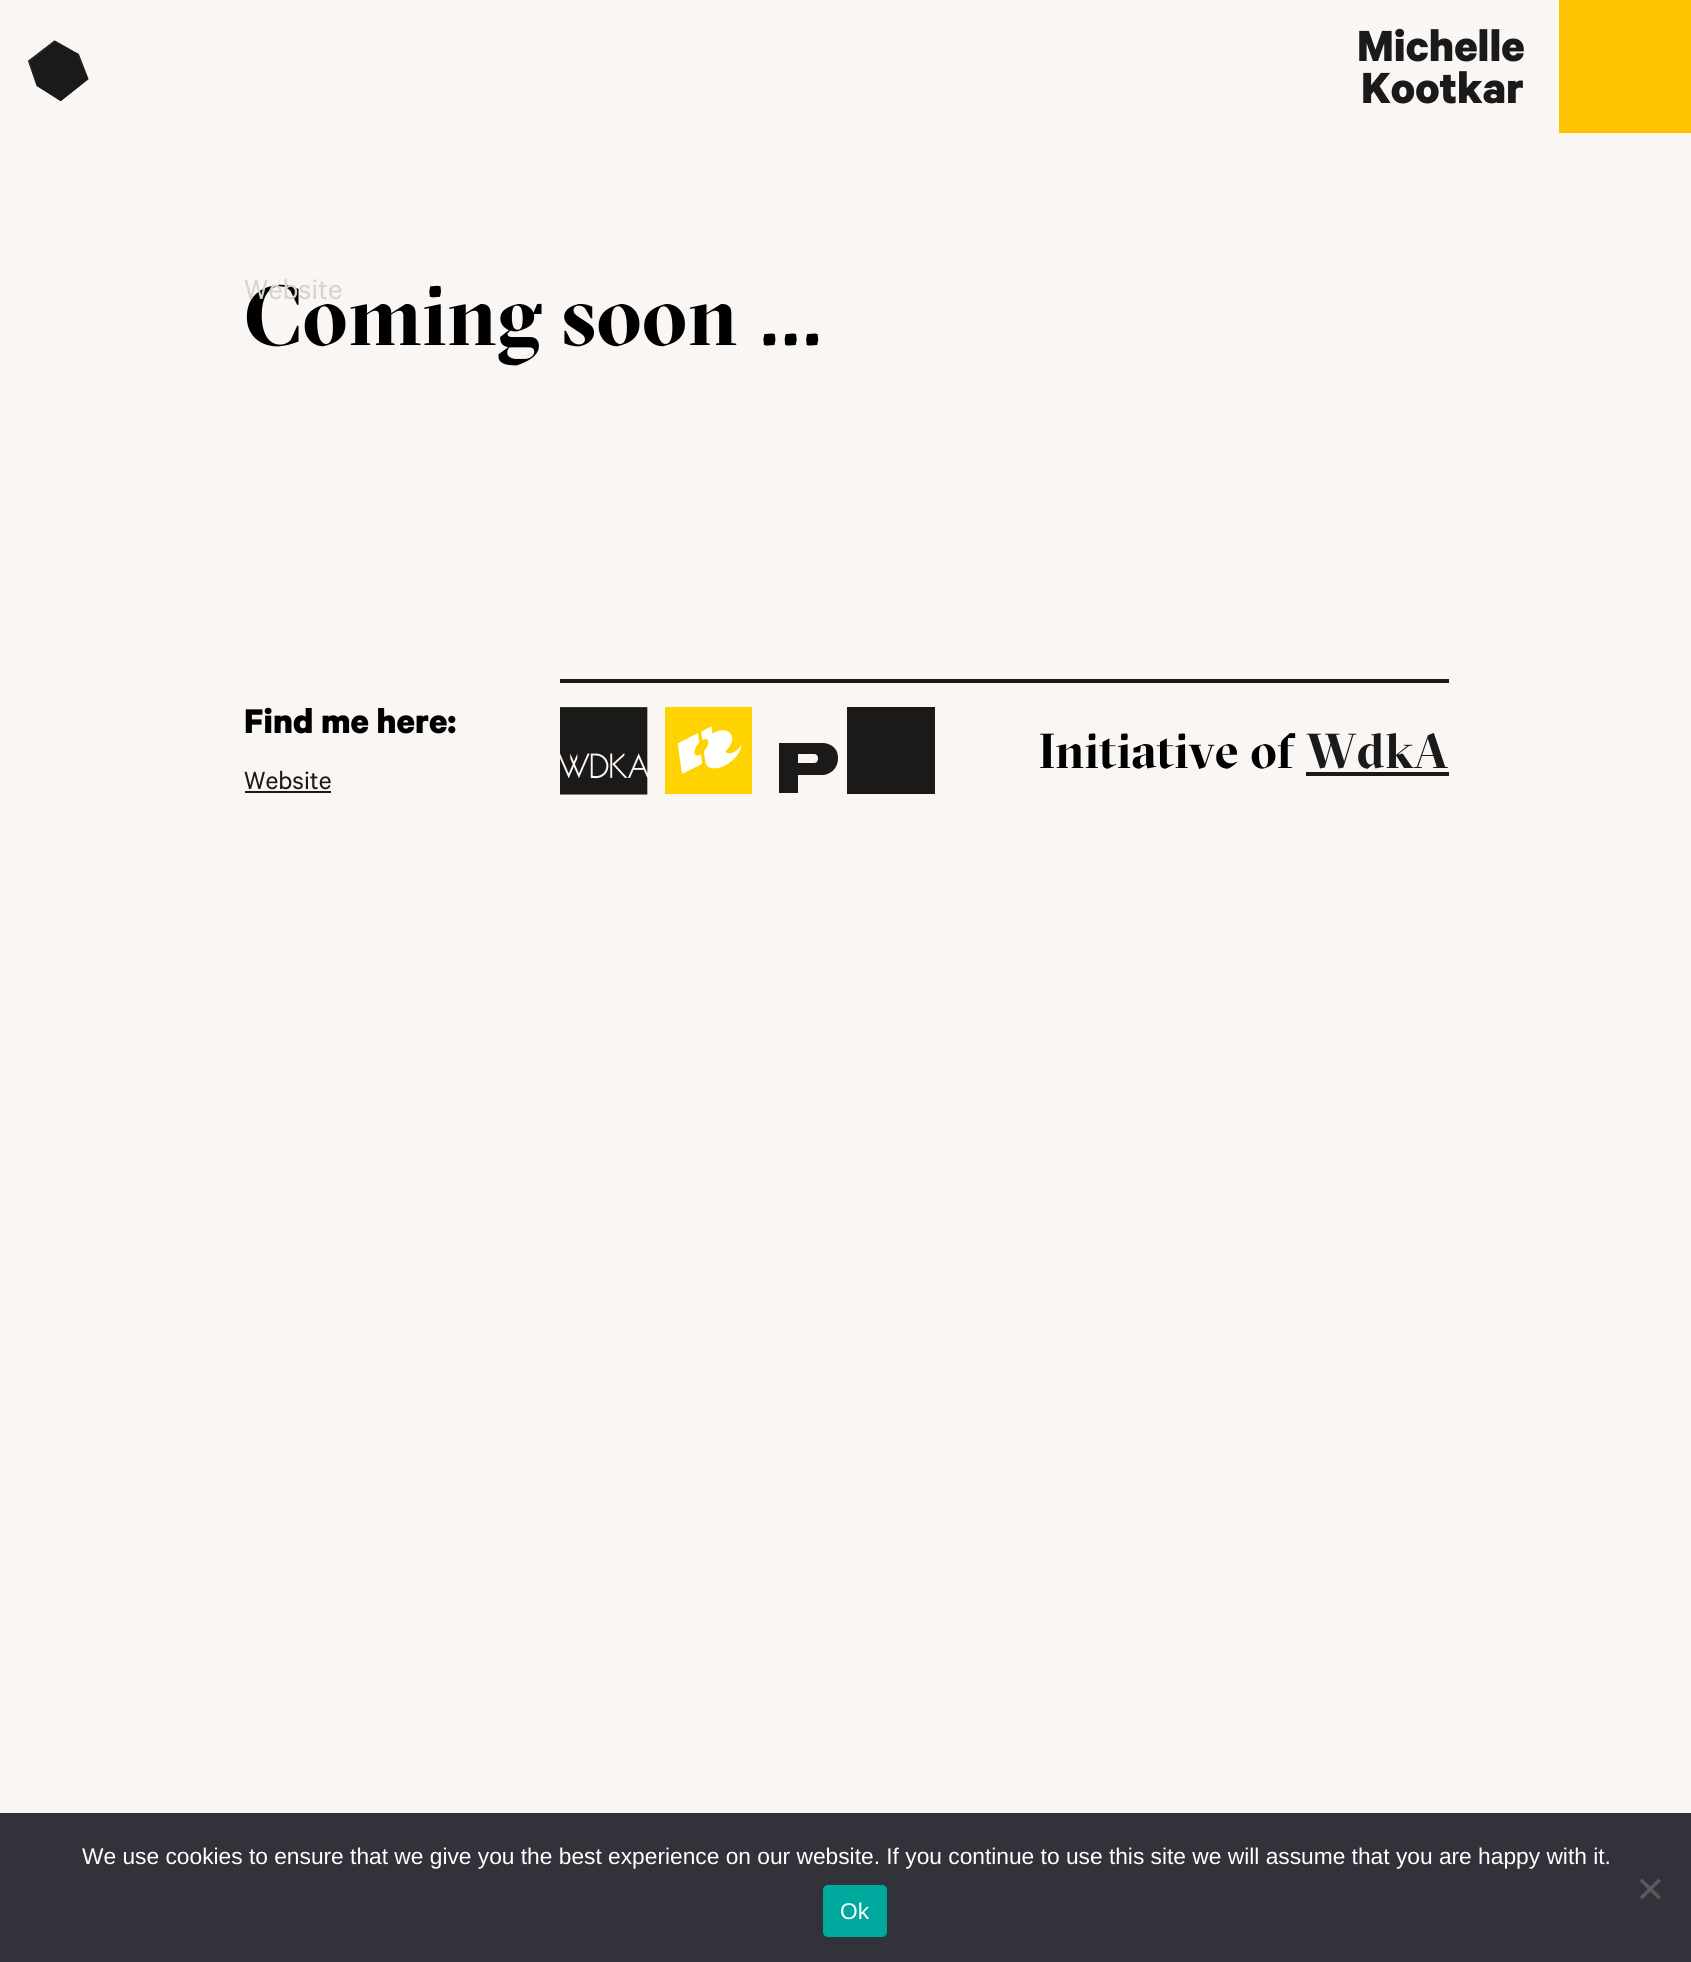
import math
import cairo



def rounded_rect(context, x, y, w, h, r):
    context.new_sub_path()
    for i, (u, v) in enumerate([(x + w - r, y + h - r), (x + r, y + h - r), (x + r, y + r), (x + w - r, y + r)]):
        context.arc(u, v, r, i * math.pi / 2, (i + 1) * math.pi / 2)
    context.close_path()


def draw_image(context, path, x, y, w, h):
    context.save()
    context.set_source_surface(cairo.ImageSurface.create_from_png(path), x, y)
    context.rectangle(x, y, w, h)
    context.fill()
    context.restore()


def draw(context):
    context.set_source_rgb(249 / 255, 246 / 255, 243 / 255)
    context.paint()
    context.set_source_rgb(26 / 255, 26 / 255, 26 / 255)
    context.set_fill_rule(cairo.FillRule.EVEN_ODD)
    context.new_path()
    context.move_to(55, 41)
    context.line_to(29, 61)
    context.line_to(37, 86)
    context.line_to(61, 101)
    context.line_to(88, 79)
    context.line_to(78, 54)
    context.close_path()
    context.fill()
    context.new_path()
    context.move_to(54.5, 41)
    context.line_to(28.5, 61)
    context.line_to(37, 85.5)
    context.line_to(60.5, 100.5)
    context.line_to(88, 79)
    context.line_to(78.5, 54.5)
    context.close_path()
    context.set_line_width(1.1)
    context.stroke()
    context.set_source_rgb(1, 195 / 255, 0)
    context.rectangle(1559, 0, 132, 133)
    context.fill()
    context.set_source_rgb(26 / 255, 26 / 255, 26 / 255)
    context.rectangle(245, 791, 86, 2)
    context.fill()
    context.rectangle(560, 679, 889, 4)
    context.fill()
    draw_image(context, "images/1.png", 560, 707, 192, 88)
    context.set_source_rgb(27 / 255, 26 / 255, 25 / 255)
    context.new_path()
    context.move_to(814, 763)
    context.line_to(798, 763)
    context.line_to(798, 754)
    context.line_to(815, 754)
    context.curve_to(815, 754, 818, 755, 818, 758)
    context.curve_to(818, 762, 816, 763, 814, 763)
    context.close_path()
    context.move_to(824, 743)
    context.line_to(779, 743)
    context.line_to(779, 793)
    context.line_to(798, 793)
    context.line_to(798, 775)
    context.line_to(824, 775)
    context.curve_to(824, 775, 838, 773, 838, 758)
    context.curve_to(838, 744, 824, 743, 824, 743)
    context.close_path()
    context.fill()
    context.rectangle(847, 707, 88, 87)
    context.fill()
    context.set_source_rgb(26 / 255, 26 / 255, 26 / 255)
    context.rectangle(1306, 772, 143, 4)
    context.fill()
    context.set_source_rgb(50 / 255, 50 / 255, 58 / 255)
    context.rectangle(0, 1813, 1691, 149)
    context.fill()
    context.set_source_rgb(89 / 255, 89 / 255, 93 / 255)
    context.set_fill_rule(cairo.FillRule.WINDING)
    context.new_path()
    context.move_to(1658.5, 1878.5)
    context.line_to(1661, 1881)
    context.line_to(1642, 1899.5)
    context.line_to(1639.5, 1897)
    context.close_path()
    context.fill()
    context.new_path()
    context.move_to(1639.5, 1881)
    context.line_to(1642, 1878.5)
    context.line_to(1661, 1897)
    context.line_to(1658.5, 1899.5)
    context.close_path()
    context.fill()
    context.set_source_rgb(0, 169 / 255, 157 / 255)
    rounded_rect(context, 823, 1885, 64, 52, 5)
    context.fill()
    context.select_font_face("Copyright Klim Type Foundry", cairo.FontSlant.NORMAL, cairo.FontWeight.BOLD)
    context.set_font_size(49)
    context.set_source_rgb(26 / 255, 26 / 255, 26 / 255)
    context.move_to(1357, 61)
    context.show_text("Michelle")
    context.move_to(1361, 103)
    context.show_text("Kootkar")
    context.select_font_face("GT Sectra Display", cairo.FontSlant.NORMAL, cairo.FontWeight.BOLD)
    context.set_font_size(84)
    context.set_source_rgb(0, 0, 0)
    context.move_to(244, 345)
    context.show_text("Coming soon ...")
    context.select_font_face("Copyright Klim Type Foundry")
    context.set_font_size(31.5)
    context.set_source_rgb(214 / 255, 212 / 255, 209 / 255)
    context.move_to(244, 299)
    context.show_text("Website")
    context.select_font_face("Copyright Klim Type Foundry", cairo.FontSlant.NORMAL, cairo.FontWeight.BOLD)
    context.set_font_size(38.5)
    context.set_source_rgb(0, 0, 0)
    context.move_to(244, 733)
    context.show_text("Find me here:")
    context.select_font_face("Copyright Klim Type Foundry")
    context.set_font_size(28)
    context.set_source_rgb(26 / 255, 26 / 255, 26 / 255)
    context.move_to(244, 789)
    context.show_text("Website")
    context.select_font_face("GT Sectra Display", cairo.FontSlant.NORMAL, cairo.FontWeight.BOLD)
    context.set_font_size(49)
    context.set_source_rgb(0, 0, 0)
    context.move_to(1039, 768)
    context.show_text("Initiative of")
    context.set_source_rgb(26 / 255, 26 / 255, 26 / 255)
    context.move_to(1306, 768)
    context.show_text("WdkA")
    context.select_font_face("Liberation Sans")
    context.set_font_size(22.75)
    context.set_source_rgb(1, 1, 1)
    context.move_to(82, 1864)
    context.show_text("We use cookies to ensure that we give you the best experience on our website. If you continue to use this site we will assume that you are happy with it.")
    context.move_to(840, 1919)
    context.show_text("Ok")


surface = cairo.ImageSurface(cairo.Format.RGB24, 1691, 1962)
context = cairo.Context(surface)
options = cairo.FontOptions()
options.set_hint_metrics(cairo.HintMetrics.OFF)
options.set_hint_style(cairo.HintStyle.NONE)
context.set_font_options(options)
context.set_miter_limit(4)
draw(context)
surface.write_to_png("out.png")
